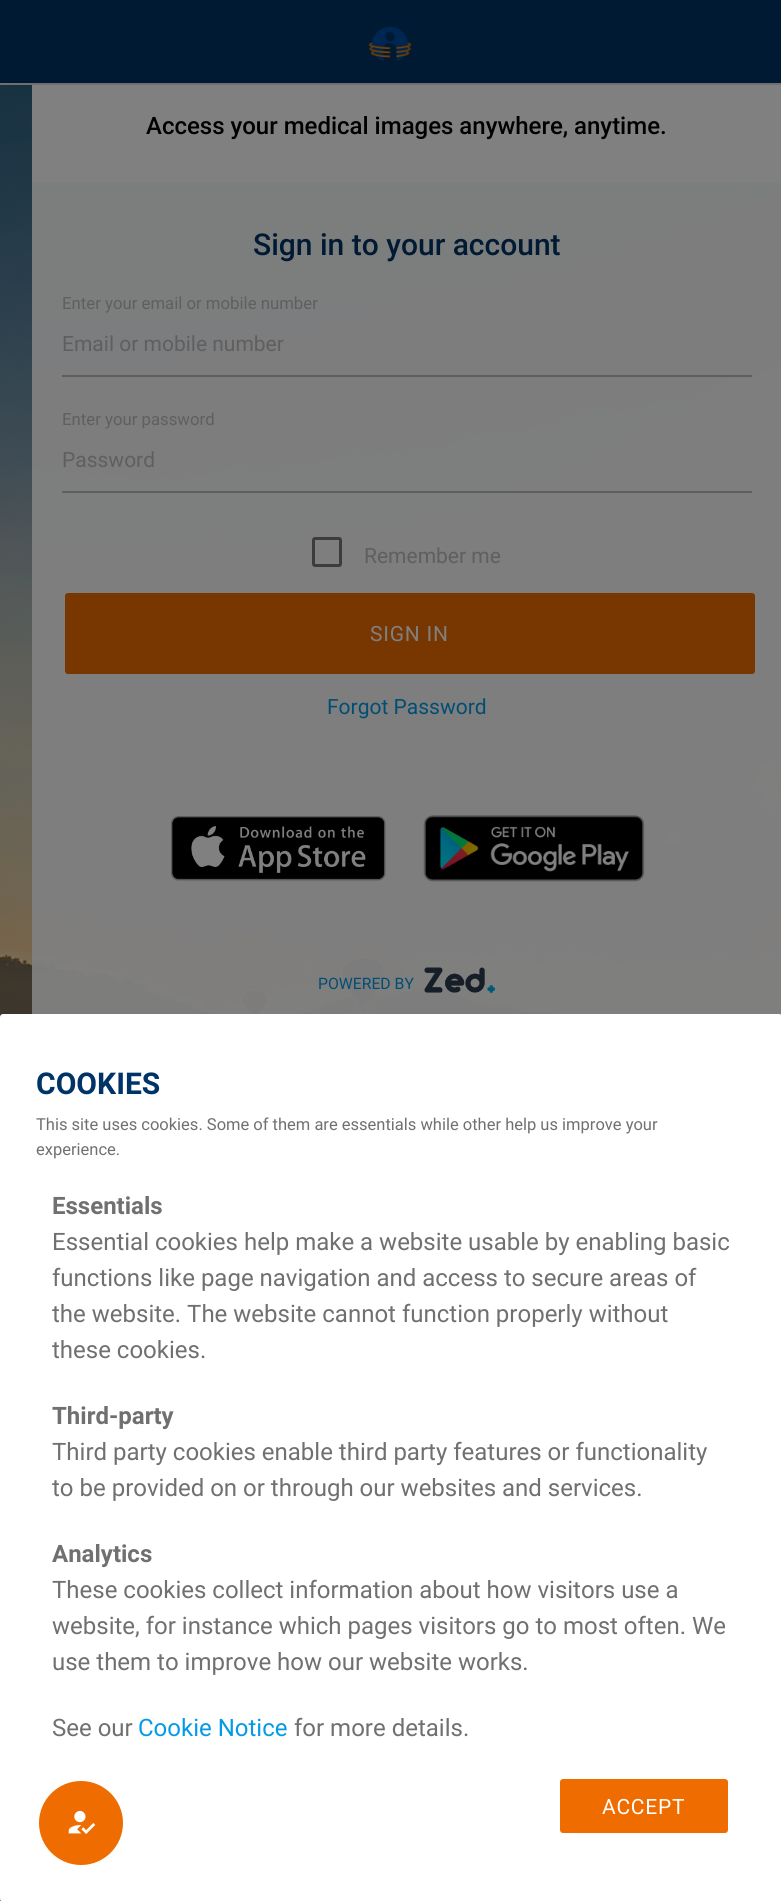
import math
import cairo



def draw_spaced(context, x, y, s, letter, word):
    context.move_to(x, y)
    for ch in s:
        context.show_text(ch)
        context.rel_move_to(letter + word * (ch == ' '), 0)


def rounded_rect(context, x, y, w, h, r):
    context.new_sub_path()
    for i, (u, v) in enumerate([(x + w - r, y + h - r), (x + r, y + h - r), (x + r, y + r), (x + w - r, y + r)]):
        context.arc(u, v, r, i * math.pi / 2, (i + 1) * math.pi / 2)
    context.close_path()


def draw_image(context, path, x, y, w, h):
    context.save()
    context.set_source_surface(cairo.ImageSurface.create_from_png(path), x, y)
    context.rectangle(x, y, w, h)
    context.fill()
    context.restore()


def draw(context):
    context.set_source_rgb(10 / 255, 18 / 255, 27 / 255)
    context.paint()
    context.set_source_rgb(0, 26 / 255, 51 / 255)
    context.rectangle(0, 0, 781, 83)
    context.fill()
    context.set_source_rgb(111 / 255, 111 / 255, 111 / 255)
    context.rectangle(0, 83, 781, 2)
    context.fill()
    draw_image(context, "images/1.png", 368, 26, 44, 36)
    draw_image(context, "images/2.png", 0, 85, 781, 932)
    context.set_source_rgb(128 / 255, 128 / 255, 128 / 255)
    context.rectangle(32, 85, 749, 98)
    context.fill()
    context.set_source_rgb(95 / 255, 95 / 255, 95 / 255)
    context.rectangle(62, 375, 690, 2)
    context.fill()
    context.rectangle(62, 491, 690, 2)
    context.fill()
    rounded_rect(context, 313.5, 538.5, 27, 27, 1.5)
    context.set_source_rgb(60 / 255, 60 / 255, 60 / 255)
    context.set_line_width(3)
    context.stroke()
    context.set_source_rgb(120 / 255, 54 / 255, 0)
    rounded_rect(context, 65, 593, 690, 81, 3)
    context.fill()
    draw_image(context, "images/3.png", 171, 816, 215, 65)
    draw_image(context, "images/4.png", 423, 815, 222, 67)
    draw_image(context, "images/5.png", 424, 967, 71, 26)
    context.set_source_rgb(1, 1, 1)
    rounded_rect(context, 0, 1014, 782, 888, 3)
    context.fill()
    context.set_source_rgb(239 / 255, 108 / 255, 0)
    rounded_rect(context, 560, 1779, 168, 54, 3)
    context.fill()
    context.arc(81, 1823, 42, 0, 2 * math.pi)
    context.fill()
    draw_image(context, "images/6.png", 68, 1811, 28, 23)
    context.select_font_face("Roboto Medium")
    context.set_font_size(24)
    context.set_source_rgb(0, 0, 0)
    context.move_to(146, 134)
    context.show_text("Access your medical images anywhere, anytime.")
    context.set_font_size(30)
    context.set_source_rgb(0, 26 / 255, 51 / 255)
    context.move_to(253, 255)
    context.show_text("Sign in to your account")
    context.select_font_face("Roboto")
    context.set_font_size(16.75)
    context.set_source_rgb(95 / 255, 95 / 255, 95 / 255)
    context.move_to(62, 309)
    context.show_text("Enter your email or mobile number")
    context.set_font_size(21)
    context.move_to(62, 351)
    context.show_text("Email or mobile number")
    context.set_font_size(16.75)
    context.move_to(62, 425)
    context.show_text("Enter your password")
    context.set_font_size(21)
    context.move_to(62, 467)
    context.show_text("Password")
    context.move_to(364, 563)
    context.show_text("Remember me")
    context.set_source_rgb(128 / 255, 128 / 255, 128 / 255)
    draw_spaced(context, 370, 641, "SIGN IN", 0.75, 0)
    context.set_source_rgb(2 / 255, 78 / 255, 115 / 255)
    context.move_to(327, 714)
    context.show_text("Forgot Password")
    context.set_font_size(15.75)
    context.move_to(318, 989)
    context.show_text("POWERED BY")
    context.select_font_face("Roboto", cairo.FontSlant.NORMAL, cairo.FontWeight.BOLD)
    context.set_font_size(30)
    context.set_source_rgb(0, 51 / 255, 102 / 255)
    context.move_to(36, 1094)
    context.show_text("COOKIES")
    context.select_font_face("Roboto")
    context.set_font_size(16.5)
    context.set_source_rgb(112 / 255, 112 / 255, 112 / 255)
    context.move_to(36, 1130)
    context.show_text("This site uses cookies. Some of them are essentials while other help us improve your")
    context.move_to(36, 1155)
    context.show_text("experience.")
    context.select_font_face("Roboto", cairo.FontSlant.NORMAL, cairo.FontWeight.BOLD)
    context.set_font_size(24)
    context.move_to(52, 1214)
    context.show_text("Essentials")
    context.select_font_face("Roboto")
    context.move_to(52, 1250)
    context.show_text("Essential cookies help make a website usable by enabling basic")
    context.move_to(52, 1286)
    context.show_text("functions like page navigation and access to secure areas of")
    context.move_to(52, 1322)
    context.show_text("the website. The website cannot function properly without")
    context.move_to(52, 1358)
    context.show_text("these cookies.")
    context.select_font_face("Roboto", cairo.FontSlant.NORMAL, cairo.FontWeight.BOLD)
    context.move_to(52, 1424)
    context.show_text("Third-party")
    context.select_font_face("Roboto")
    context.move_to(52, 1460)
    context.show_text("Third party cookies enable third party features or functionality")
    context.move_to(52, 1496)
    context.show_text("to be provided on or through our websites and services.")
    context.select_font_face("Roboto", cairo.FontSlant.NORMAL, cairo.FontWeight.BOLD)
    context.move_to(52, 1562)
    context.show_text("Analytics")
    context.select_font_face("Roboto")
    context.move_to(52, 1598)
    context.show_text("These cookies collect information about how visitors use a")
    context.move_to(52, 1634)
    context.show_text("website, for instance which pages visitors go to most often. We")
    context.move_to(52, 1670)
    context.show_text("use them to improve how our website works.")
    context.move_to(52, 1736)
    context.show_text("See our")
    context.set_source_rgb(3 / 255, 155 / 255, 229 / 255)
    context.move_to(138, 1736)
    context.show_text("Cookie Notice")
    context.set_source_rgb(112 / 255, 112 / 255, 112 / 255)
    context.move_to(294, 1736)
    context.show_text("for more details.")
    context.set_font_size(21)
    context.set_source_rgb(1, 1, 1)
    draw_spaced(context, 602, 1814, "ACCEPT", 0.75, 0)


surface = cairo.ImageSurface(cairo.Format.RGB24, 781, 1901)
context = cairo.Context(surface)
options = cairo.FontOptions()
options.set_hint_metrics(cairo.HintMetrics.OFF)
options.set_hint_style(cairo.HintStyle.NONE)
context.set_font_options(options)
context.set_miter_limit(4)
draw(context)
surface.write_to_png("out.png")
